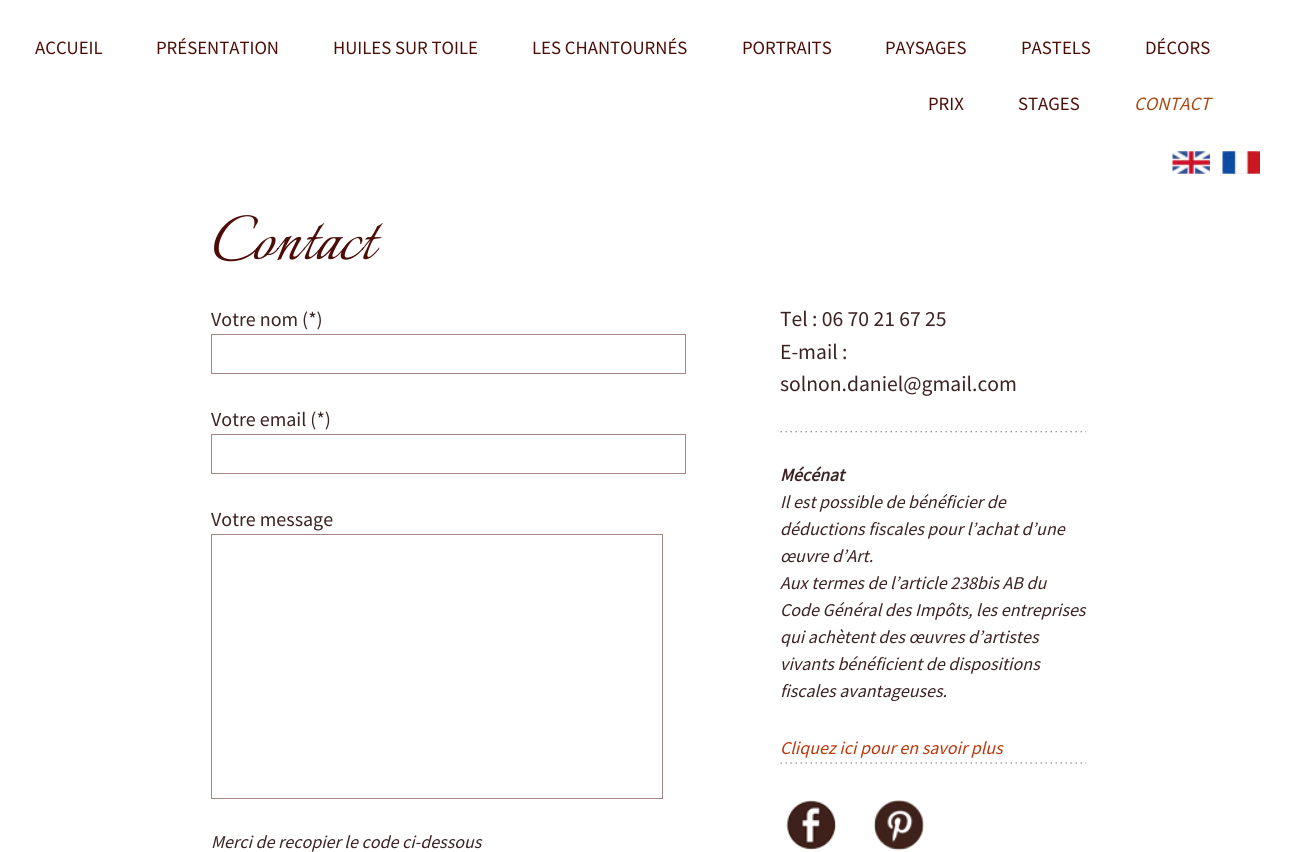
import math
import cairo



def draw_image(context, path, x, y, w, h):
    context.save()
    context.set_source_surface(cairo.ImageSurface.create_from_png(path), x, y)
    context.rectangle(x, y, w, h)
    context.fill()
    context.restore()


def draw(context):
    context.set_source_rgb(1, 1, 1)
    context.paint()
    draw_image(context, "images/1.png", 1172, 151, 38, 23)
    draw_image(context, "images/2.png", 1222, 151, 38, 23)
    context.rectangle(211.5, 334.5, 474, 39)
    context.set_source_rgb(166 / 255, 134 / 255, 132 / 255)
    context.set_line_width(1)
    context.stroke()
    context.rectangle(211.5, 434.5, 474, 39)
    context.stroke()
    context.rectangle(211.5, 534.5, 451, 264)
    context.stroke()
    draw_image(context, "images/3.png", 780, 431, 307, 2)
    draw_image(context, "images/4.png", 780, 762, 307, 2)
    draw_image(context, "images/5.png", 786, 800, 51, 50)
    draw_image(context, "images/6.png", 873, 800, 51, 50)
    context.select_font_face("Source Sans Pro")
    context.set_font_size(18.75)
    context.set_source_rgb(76 / 255, 13 / 255, 8 / 255)
    context.move_to(35, 54)
    context.show_text("ACCUEIL")
    context.move_to(156, 54)
    context.show_text("PRÉSENTATION")
    context.move_to(333, 54)
    context.show_text("HUILES SUR TOILE")
    context.move_to(532, 54)
    context.show_text("LES CHANTOURNÉS")
    context.move_to(742, 54)
    context.show_text("PORTRAITS")
    context.move_to(885, 54)
    context.show_text("PAYSAGES")
    context.move_to(1021, 54)
    context.show_text("PASTELS")
    context.move_to(1145, 54)
    context.show_text("DÉCORS")
    context.move_to(928, 110)
    context.show_text("PRIX")
    context.move_to(1018, 110)
    context.show_text("STAGES")
    context.select_font_face("Source Sans Pro", cairo.FontSlant.ITALIC)
    context.set_source_rgb(170 / 255, 72 / 255, 19 / 255)
    context.move_to(1134, 110)
    context.show_text("CONTACT")
    context.select_font_face("Italianno")
    context.set_font_size(80)
    context.set_source_rgb(76 / 255, 13 / 255, 8 / 255)
    context.move_to(211, 259)
    context.show_text("Contact")
    context.select_font_face("Source Sans Pro")
    context.set_font_size(20)
    context.set_source_rgb(60 / 255, 34 / 255, 34 / 255)
    context.move_to(211, 326)
    context.show_text("Votre nom (*)")
    context.move_to(211, 426)
    context.show_text("Votre email (*)")
    context.move_to(211, 526)
    context.show_text("Votre message")
    context.select_font_face("Source Sans Pro", cairo.FontSlant.ITALIC)
    context.set_font_size(18)
    context.move_to(211, 848)
    context.show_text("Merci de recopier le code ci-dessous")
    context.select_font_face("Source Sans Pro")
    context.set_font_size(21.6)
    context.move_to(780, 326)
    context.show_text("Tel : 06 70 21 67 25")
    context.move_to(780, 359)
    context.show_text("E-mail :")
    context.move_to(780, 391)
    context.show_text("solnon.daniel@gmail.com")
    context.select_font_face("Source Sans Pro", cairo.FontSlant.ITALIC, cairo.FontWeight.BOLD)
    context.set_font_size(18)
    context.move_to(780, 481)
    context.show_text("Mécénat")
    context.select_font_face("Source Sans Pro", cairo.FontSlant.ITALIC)
    context.move_to(780, 508)
    context.show_text("Il est possible de bénéficier de")
    context.move_to(780, 535)
    context.show_text("déductions fiscales pour l’achat d’une")
    context.move_to(780, 562)
    context.show_text("œuvre d’Art.")
    context.move_to(780, 589)
    context.show_text("Aux termes de l’article 238bis AB du")
    context.move_to(780, 616)
    context.show_text("Code Général des Impôts, les entreprises")
    context.move_to(780, 643)
    context.show_text("qui achètent des œuvres d’artistes")
    context.move_to(780, 670)
    context.show_text("vivants bénéficient de dispositions")
    context.move_to(780, 697)
    context.show_text("fiscales avantageuses.")
    context.set_source_rgb(188 / 255, 54 / 255, 10 / 255)
    context.move_to(780, 754)
    context.show_text("Cliquez ici pour en savoir plus")


surface = cairo.ImageSurface(cairo.Format.RGB24, 1297, 852)
context = cairo.Context(surface)
options = cairo.FontOptions()
options.set_hint_metrics(cairo.HintMetrics.OFF)
options.set_hint_style(cairo.HintStyle.NONE)
context.set_font_options(options)
context.set_miter_limit(4)
draw(context)
surface.write_to_png("out.png")
